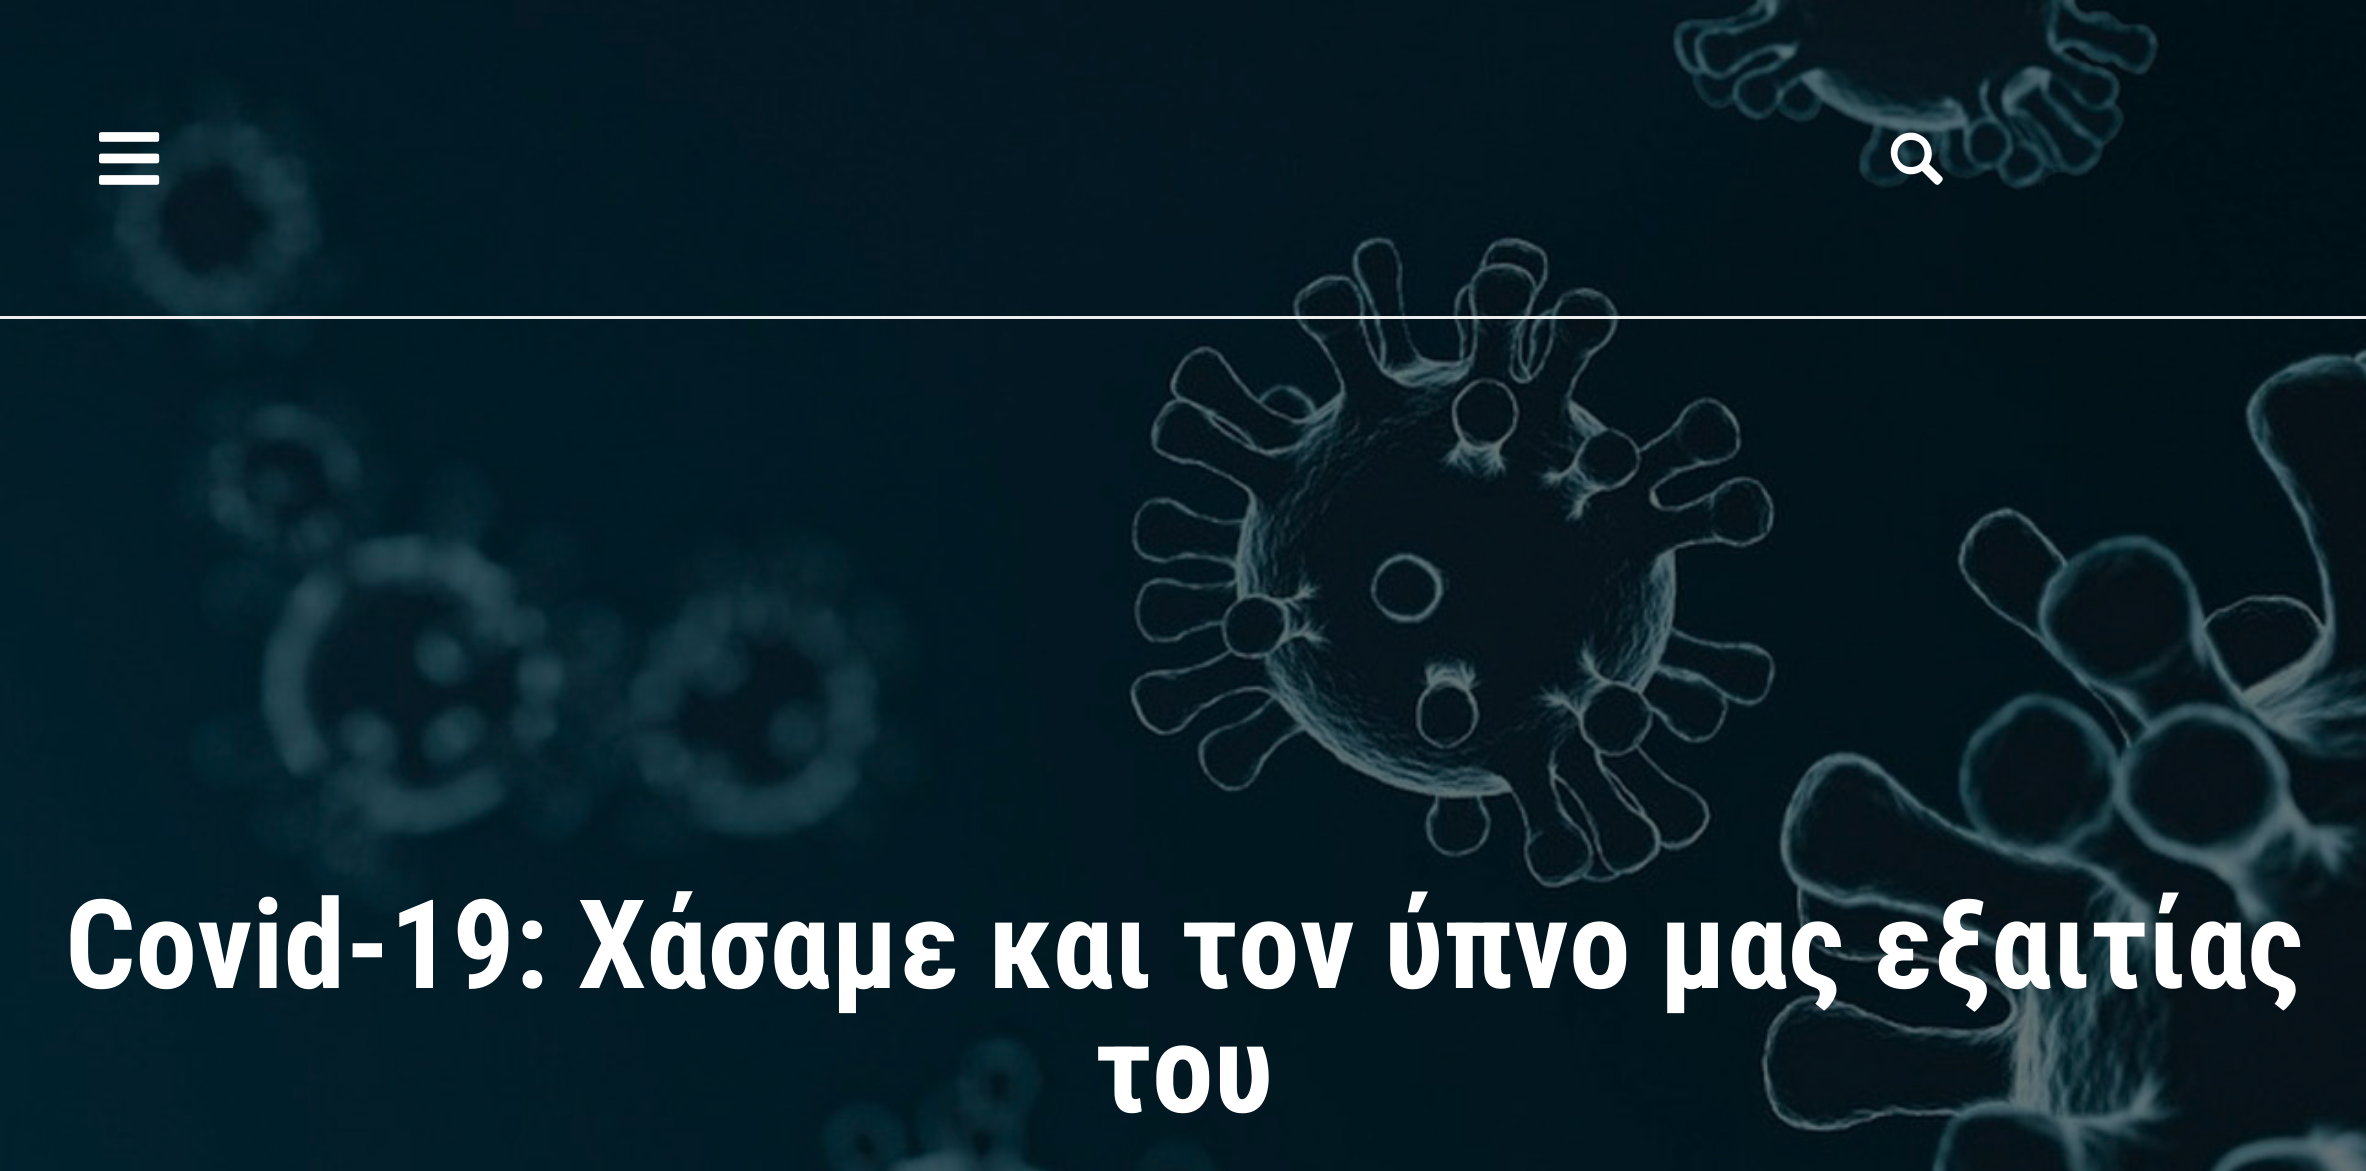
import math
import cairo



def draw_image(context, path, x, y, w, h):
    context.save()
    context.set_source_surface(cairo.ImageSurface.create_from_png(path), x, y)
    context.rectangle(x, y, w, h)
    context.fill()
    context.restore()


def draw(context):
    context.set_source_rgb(1, 1, 1)
    context.paint()
    draw_image(context, "images/2.png", 0, 0, 2366, 1171)
    context.set_source_rgb(238 / 255, 238 / 255, 238 / 255)
    context.rectangle(0, 316, 2366, 3)
    context.fill()
    draw_image(context, "images/1.png", 99, 132, 61, 53)
    context.set_source_rgb(1, 1, 1)
    context.new_path()
    context.move_to(1942, 177)
    context.line_to(1929, 164)
    context.curve_to(1935, 154, 1931, 140, 1920, 135)
    context.curve_to(1915, 132, 1909, 132, 1903, 134)
    context.curve_to(1877, 146, 1897, 186, 1922, 171)
    context.line_to(1933, 182)
    context.curve_to(1937, 186, 1938, 186, 1942, 181)
    context.curve_to(1943, 180, 1943, 178, 1942, 177)
    context.close_path()
    context.move_to(1911, 167)
    context.curve_to(1893, 167, 1893, 140, 1911, 140)
    context.curve_to(1929, 140, 1929, 167, 1911, 167)
    context.close_path()
    context.fill()
    context.select_font_face("Roboto Condensed", cairo.FontSlant.NORMAL, cairo.FontWeight.BOLD)
    context.set_font_size(123.75)
    context.move_to(65, 988)
    context.show_text("Covid-19: Χάσαμε και τον ύπνο μας εξαιτίας")
    context.move_to(1095, 1112)
    context.show_text("του")


surface = cairo.ImageSurface(cairo.Format.RGB24, 2366, 1171)
context = cairo.Context(surface)
options = cairo.FontOptions()
options.set_hint_metrics(cairo.HintMetrics.OFF)
options.set_hint_style(cairo.HintStyle.NONE)
context.set_font_options(options)
context.set_miter_limit(4)
draw(context)
surface.write_to_png("out.png")
